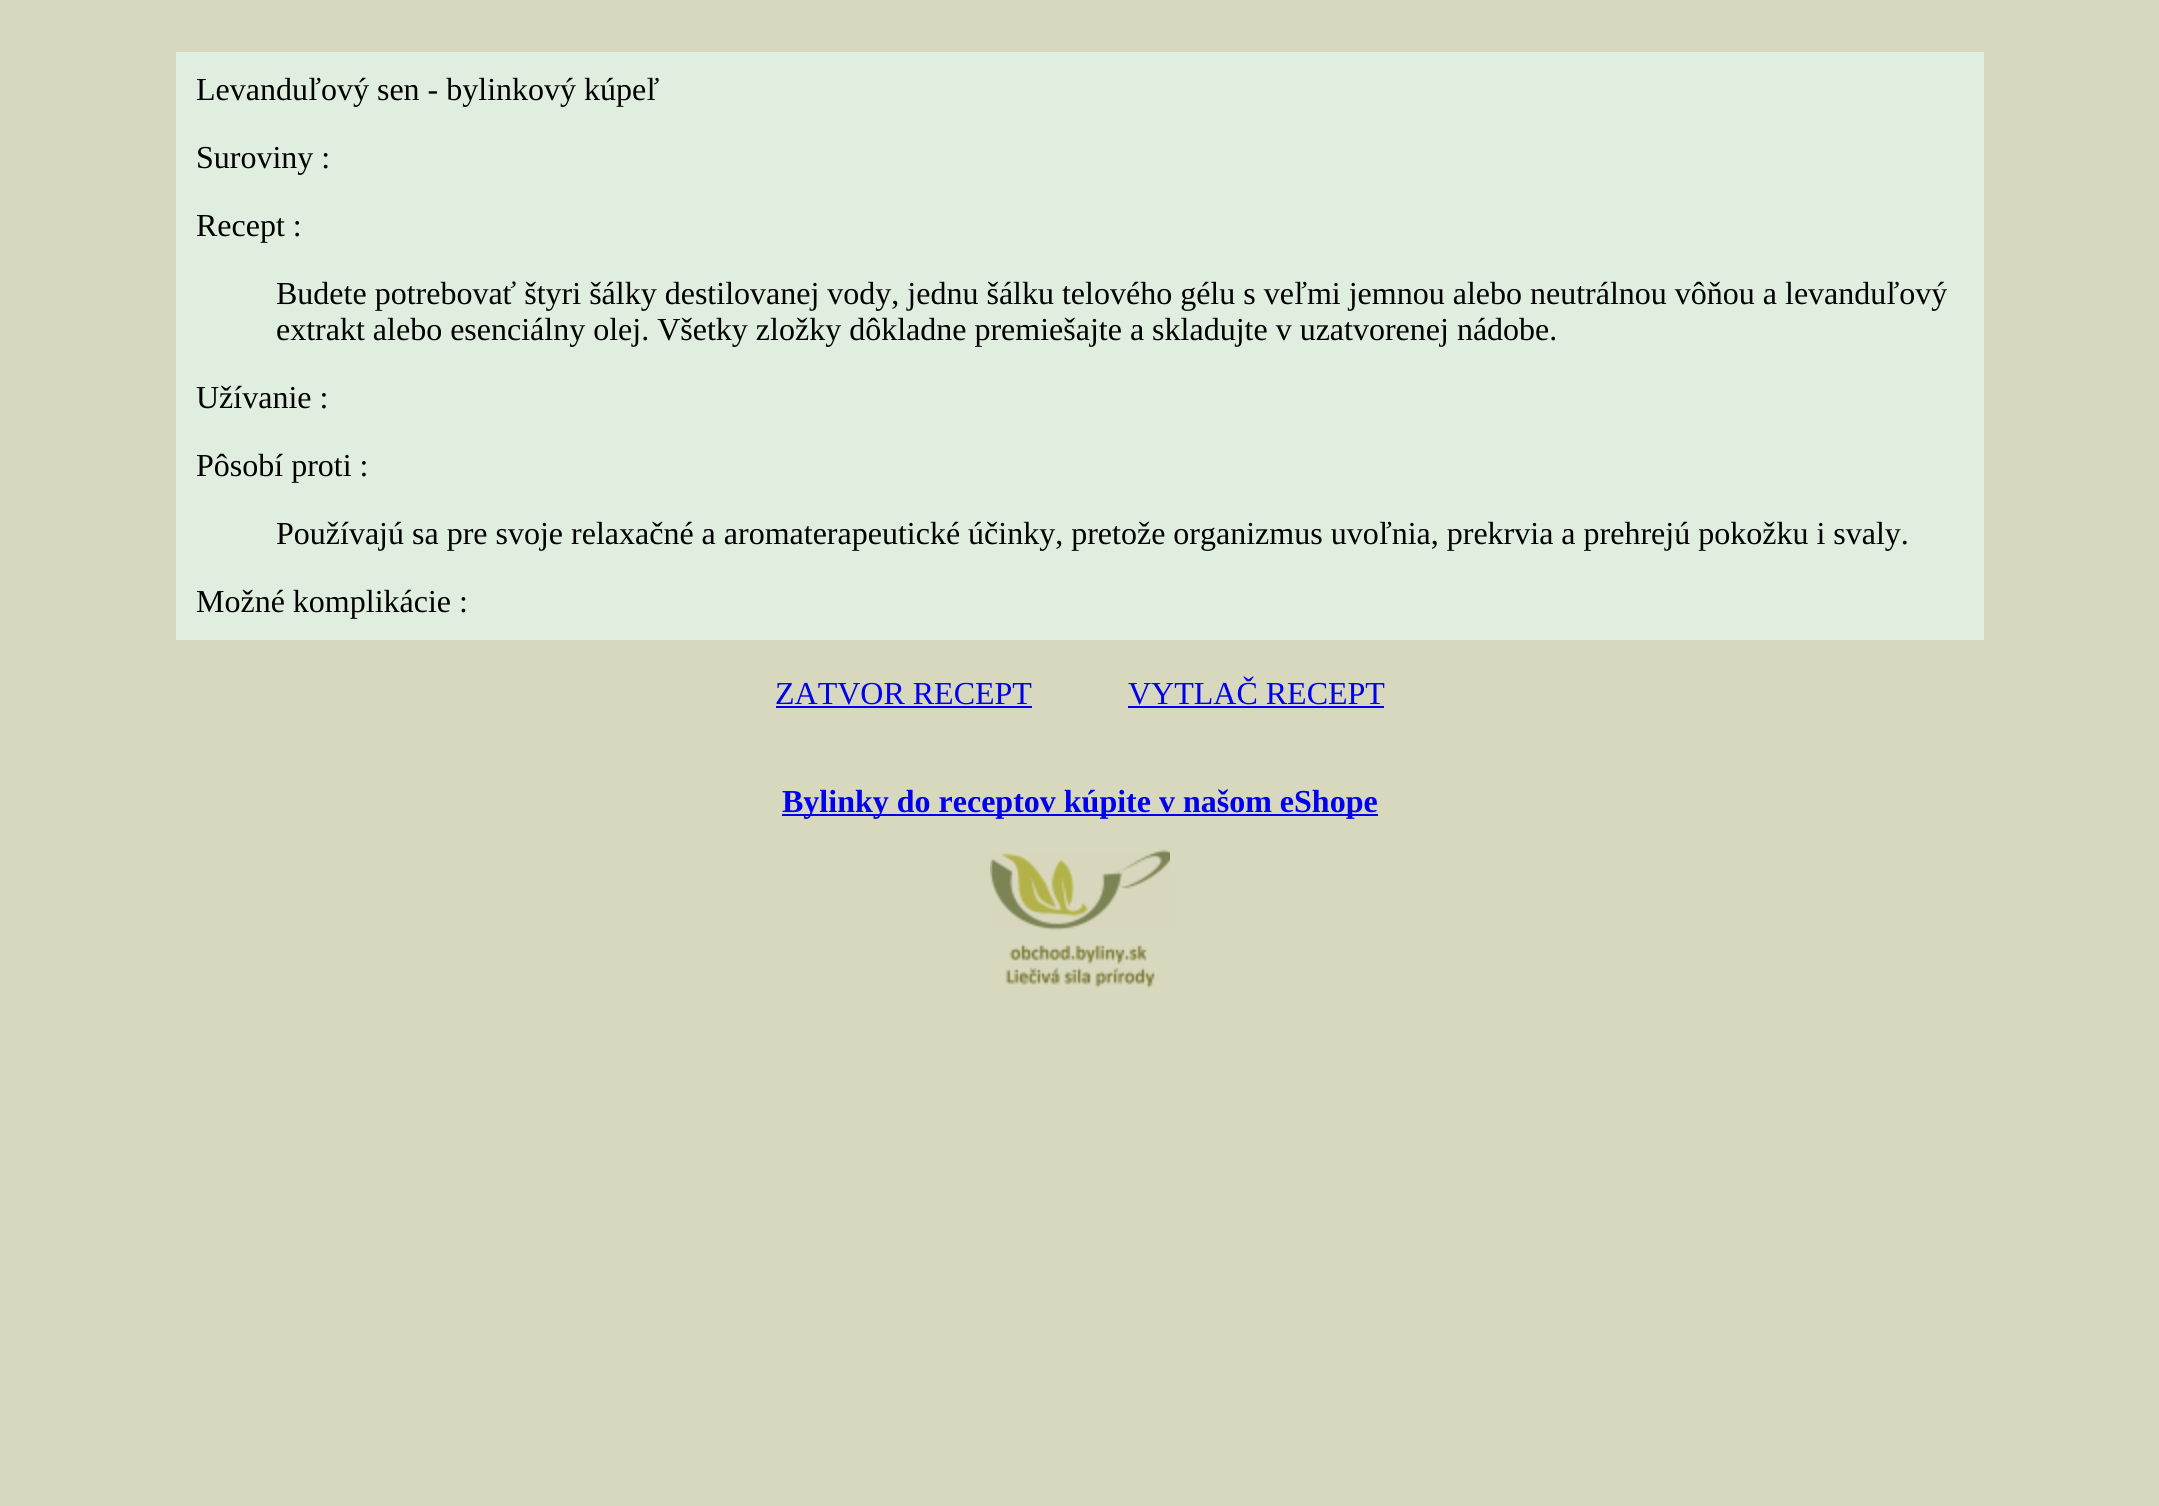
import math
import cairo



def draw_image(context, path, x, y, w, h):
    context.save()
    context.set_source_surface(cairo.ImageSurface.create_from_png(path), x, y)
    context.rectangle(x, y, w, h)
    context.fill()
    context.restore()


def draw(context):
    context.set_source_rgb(216 / 255, 216 / 255, 191 / 255)
    context.paint()
    context.set_source_rgb(224 / 255, 238 / 255, 224 / 255)
    context.rectangle(176, 52, 1808, 588)
    context.fill()
    context.set_source_rgb(0, 0, 238 / 255)
    context.rectangle(776, 706, 256, 2)
    context.fill()
    context.rectangle(1128, 706, 256, 2)
    context.fill()
    context.rectangle(782, 814, 596, 2)
    context.fill()
    draw_image(context, "images/1.png", 990, 849, 180, 140)
    context.select_font_face("Liberation Serif")
    context.set_font_size(32)
    context.set_source_rgb(0, 0, 0)
    context.move_to(196, 100)
    context.show_text("Levanduľový sen - bylinkový kúpeľ")
    context.move_to(196, 168)
    context.show_text("Suroviny :")
    context.move_to(196, 236)
    context.show_text("Recept :")
    context.move_to(276, 304)
    context.show_text("Budete potrebovať štyri šálky destilovanej vody, jednu šálku telového gélu s veľmi jemnou alebo neutrálnou vôňou a levanduľový")
    context.move_to(276, 340)
    context.show_text("extrakt alebo esenciálny olej. Všetky zložky dôkladne premiešajte a skladujte v uzatvorenej nádobe.")
    context.move_to(196, 408)
    context.show_text("Užívanie :")
    context.move_to(196, 476)
    context.show_text("Pôsobí proti :")
    context.move_to(276, 544)
    context.show_text("Používajú sa pre svoje relaxačné a aromaterapeutické účinky, pretože organizmus uvoľnia, prekrvia a prehrejú pokožku i svaly.")
    context.move_to(196, 612)
    context.show_text("Možné komplikácie :")
    context.set_source_rgb(0, 0, 238 / 255)
    context.move_to(775, 704)
    context.show_text("ZATVOR RECEPT")
    context.move_to(1128, 704)
    context.show_text("VYTLAČ RECEPT")
    context.select_font_face("Liberation Serif", cairo.FontSlant.NORMAL, cairo.FontWeight.BOLD)
    context.move_to(782, 812)
    context.show_text("Bylinky do receptov kúpite v našom eShope")


surface = cairo.ImageSurface(cairo.Format.RGB24, 2159, 1506)
context = cairo.Context(surface)
options = cairo.FontOptions()
options.set_hint_metrics(cairo.HintMetrics.OFF)
options.set_hint_style(cairo.HintStyle.NONE)
context.set_font_options(options)
context.set_miter_limit(4)
draw(context)
surface.write_to_png("out.png")
